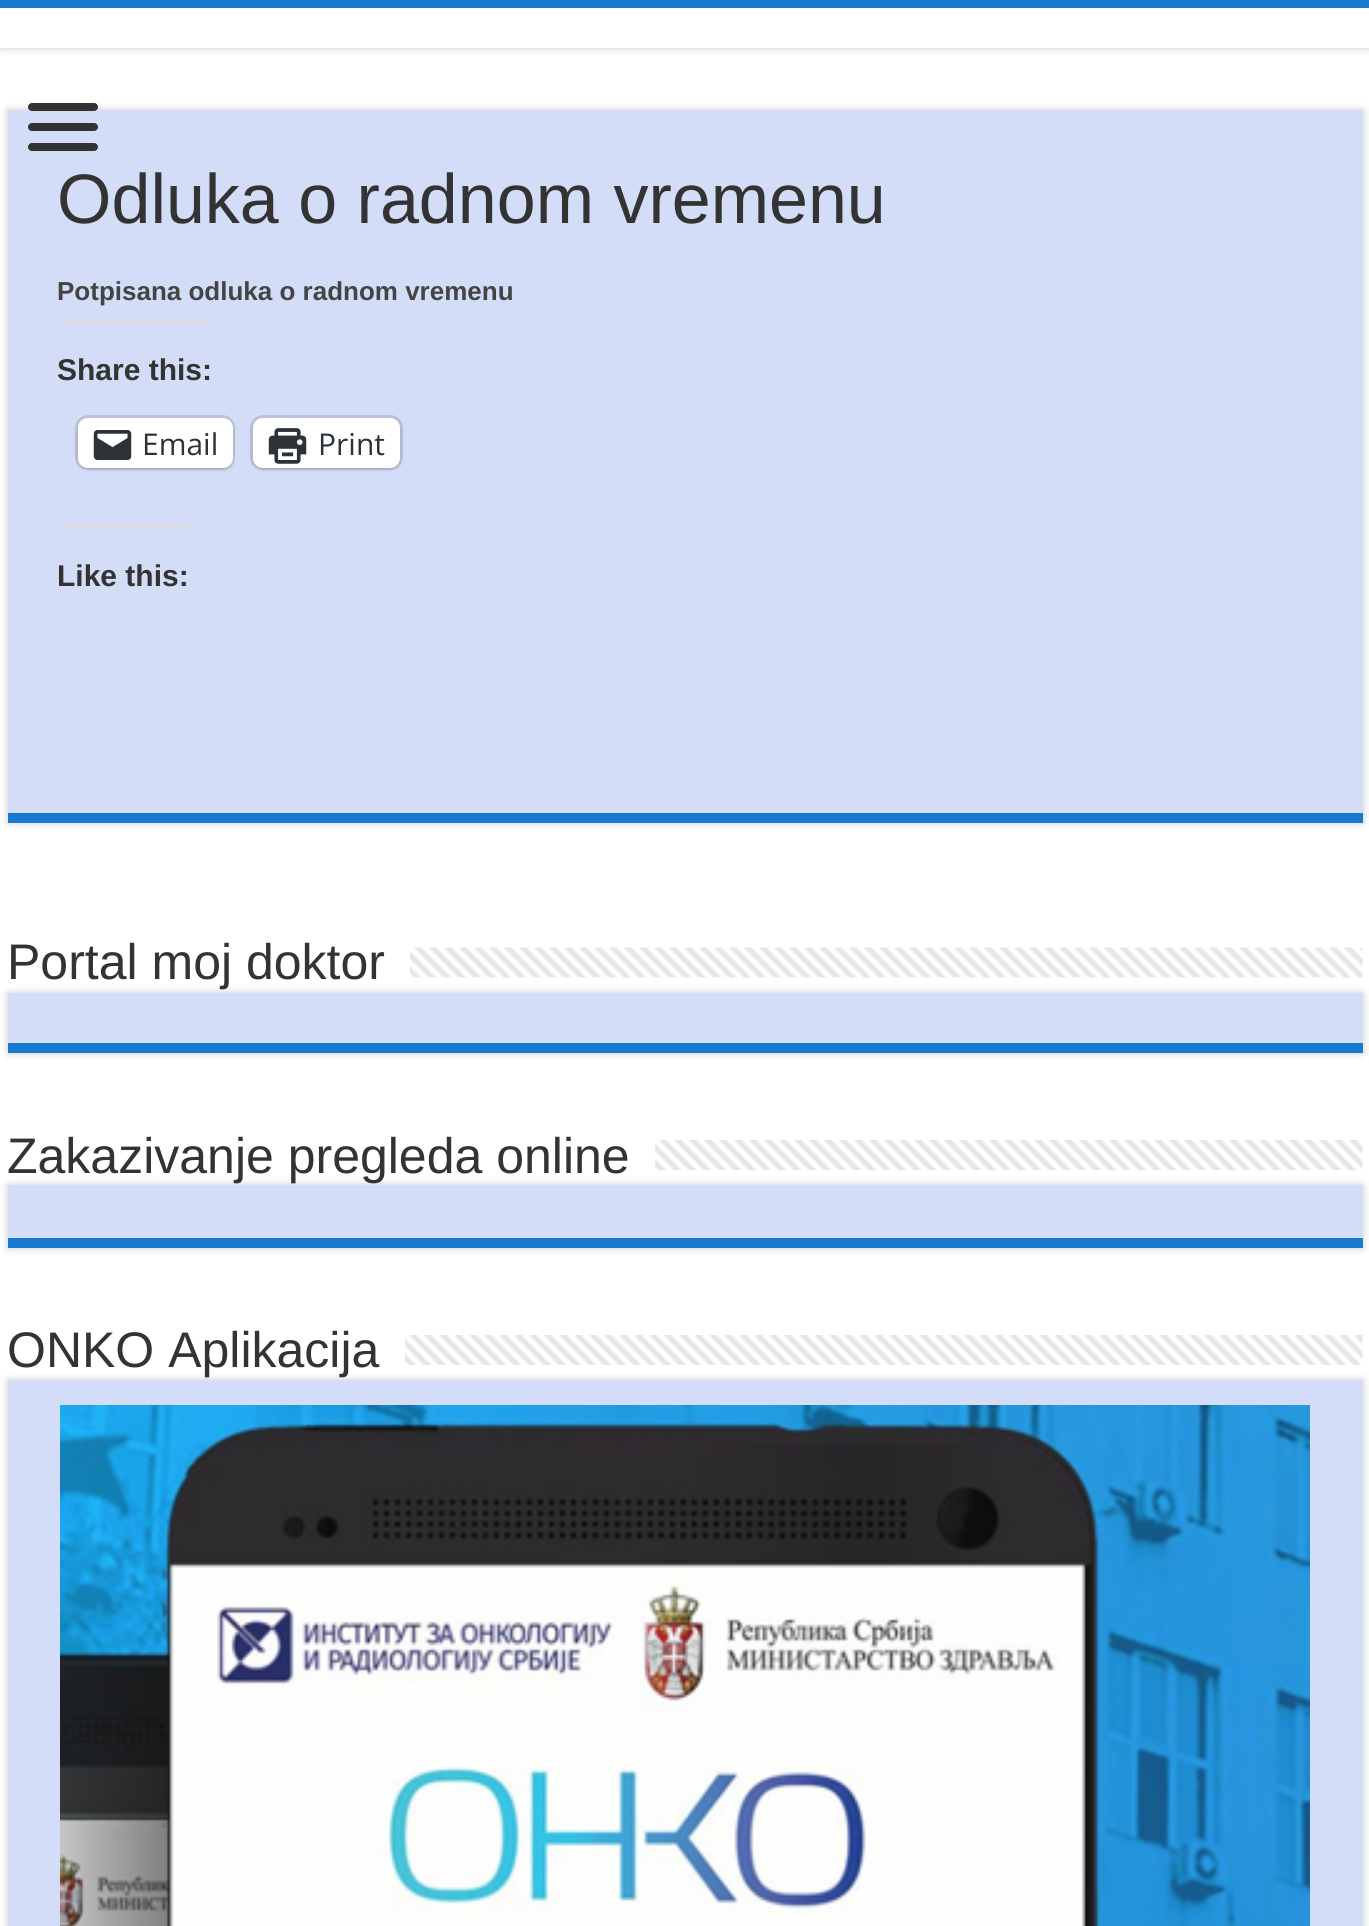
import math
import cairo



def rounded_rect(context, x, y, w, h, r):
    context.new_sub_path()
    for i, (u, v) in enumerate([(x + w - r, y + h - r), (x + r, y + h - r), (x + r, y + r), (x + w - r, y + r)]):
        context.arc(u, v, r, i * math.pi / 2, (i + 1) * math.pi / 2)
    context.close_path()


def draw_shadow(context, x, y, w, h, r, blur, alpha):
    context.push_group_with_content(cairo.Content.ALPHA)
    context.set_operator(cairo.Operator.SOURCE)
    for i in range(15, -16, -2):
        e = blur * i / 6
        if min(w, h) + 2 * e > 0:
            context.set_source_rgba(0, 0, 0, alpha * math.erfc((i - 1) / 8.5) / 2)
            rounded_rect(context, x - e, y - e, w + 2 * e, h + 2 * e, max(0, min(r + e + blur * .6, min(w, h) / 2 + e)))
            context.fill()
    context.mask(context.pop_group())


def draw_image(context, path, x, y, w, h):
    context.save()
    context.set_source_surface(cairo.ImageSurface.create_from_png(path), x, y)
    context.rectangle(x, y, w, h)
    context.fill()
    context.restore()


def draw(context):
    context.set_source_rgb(1, 1, 1)
    context.paint()
    context.set_source_rgb(202 / 255, 202 / 255, 202 / 255)
    draw_shadow(context, 0, 0, 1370, 48, 0, 4, 1)
    context.set_source_rgb(1, 1, 1)
    context.rectangle(0, 8, 1369, 40)
    context.fill()
    context.set_source_rgb(23 / 255, 122 / 255, 208 / 255)
    context.rectangle(0, 0, 1369, 8)
    context.fill()
    context.set_source_rgb(202 / 255, 202 / 255, 202 / 255)
    draw_shadow(context, 8, 110, 1355, 713, 0, 4, 1)
    context.set_source_rgb(212 / 255, 221 / 255, 247 / 255)
    context.rectangle(8, 110, 1355, 703)
    context.fill()
    context.set_source_rgb(51 / 255, 51 / 255, 51 / 255)
    rounded_rect(context, 28, 103, 70, 8, 4)
    context.fill()
    rounded_rect(context, 28, 123, 70, 8, 4)
    context.fill()
    rounded_rect(context, 28, 143, 70, 8, 4)
    context.fill()
    context.set_source_rgb(23 / 255, 122 / 255, 208 / 255)
    context.rectangle(8, 813, 1355, 10)
    context.fill()
    context.set_source_rgb(220 / 255, 220 / 255, 222 / 255)
    context.rectangle(58, 320, 155, 3)
    context.fill()
    rounded_rect(context, 76.5, 416.5, 157, 52, 11.5)
    context.set_source_rgb(187 / 255, 194 / 255, 217 / 255)
    context.set_line_width(3)
    context.stroke()
    context.set_source_rgb(0, 0, 0)
    draw_shadow(context, 78, 420, 155, 50, 10, 2.5, 0.12)
    context.set_source_rgb(1, 1, 1)
    rounded_rect(context, 78, 418, 155, 50, 10)
    context.fill()
    draw_image(context, "images/1.png", 93, 430, 39, 30)
    rounded_rect(context, 251.5, 416.5, 150, 52, 11.5)
    context.set_source_rgb(187 / 255, 194 / 255, 217 / 255)
    context.stroke()
    context.set_source_rgb(0, 0, 0)
    draw_shadow(context, 253, 420, 147, 50, 10, 2.5, 0.12)
    context.set_source_rgb(1, 1, 1)
    rounded_rect(context, 253, 418, 147, 50, 10)
    context.fill()
    draw_image(context, "images/2.png", 268, 428, 39, 36)
    context.set_source_rgb(220 / 255, 220 / 255, 222 / 255)
    context.rectangle(58, 525, 130, 3)
    context.fill()
    draw_image(context, "images/3.png", 410, 947, 953, 31)
    context.set_source_rgb(202 / 255, 202 / 255, 202 / 255)
    draw_shadow(context, 8, 993, 1355, 60, 0, 4, 1)
    context.set_source_rgb(212 / 255, 221 / 255, 247 / 255)
    context.rectangle(8, 993, 1355, 50)
    context.fill()
    context.set_source_rgb(23 / 255, 122 / 255, 208 / 255)
    context.rectangle(8, 1043, 1355, 10)
    context.fill()
    draw_image(context, "images/4.png", 655, 1140, 708, 30)
    context.set_source_rgb(202 / 255, 202 / 255, 202 / 255)
    draw_shadow(context, 8, 1185, 1355, 63, 0, 4, 1)
    context.set_source_rgb(212 / 255, 221 / 255, 247 / 255)
    context.rectangle(8, 1185, 1355, 53)
    context.fill()
    context.set_source_rgb(23 / 255, 122 / 255, 208 / 255)
    context.rectangle(8, 1238, 1355, 10)
    context.fill()
    draw_image(context, "images/5.png", 405, 1335, 958, 30)
    context.set_source_rgb(202 / 255, 202 / 255, 202 / 255)
    draw_shadow(context, 8, 1380, 1355, 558, 0, 4, 1)
    context.set_source_rgb(212 / 255, 221 / 255, 247 / 255)
    context.rectangle(8, 1380, 1355, 546)
    context.fill()
    draw_image(context, "images/6.png", 60, 1405, 1250, 521)
    context.select_font_face("Liberation Sans")
    context.set_font_size(70)
    context.set_source_rgb(51 / 255, 51 / 255, 51 / 255)
    context.move_to(57, 223)
    context.show_text("Odluka o radnom vremenu")
    context.select_font_face("Liberation Sans", cairo.FontSlant.NORMAL, cairo.FontWeight.BOLD)
    context.set_font_size(26)
    context.set_source_rgb(68 / 255, 68 / 255, 68 / 255)
    context.move_to(57, 300)
    context.show_text("Potpisana odluka o radnom vremenu")
    context.set_font_size(30)
    context.set_source_rgb(51 / 255, 51 / 255, 51 / 255)
    context.move_to(57, 380)
    context.show_text("Share this:")
    context.select_font_face("Open Sans")
    context.set_source_rgb(44 / 255, 51 / 255, 56 / 255)
    context.move_to(142, 455)
    context.show_text("Email")
    context.move_to(318, 455)
    context.show_text("Print")
    context.select_font_face("Liberation Sans", cairo.FontSlant.NORMAL, cairo.FontWeight.BOLD)
    context.set_source_rgb(51 / 255, 51 / 255, 51 / 255)
    context.move_to(57, 586)
    context.show_text("Like this:")
    context.select_font_face("Liberation Sans")
    context.set_font_size(50)
    context.move_to(7, 979)
    context.show_text("Portal moj doktor")
    context.move_to(7, 1173)
    context.show_text("Zakazivanje pregleda online")
    context.move_to(7, 1367)
    context.show_text("ONKO Aplikacija")


surface = cairo.ImageSurface(cairo.Format.RGB24, 1369, 1926)
context = cairo.Context(surface)
options = cairo.FontOptions()
options.set_hint_metrics(cairo.HintMetrics.OFF)
options.set_hint_style(cairo.HintStyle.NONE)
context.set_font_options(options)
context.set_miter_limit(4)
draw(context)
surface.write_to_png("out.png")
